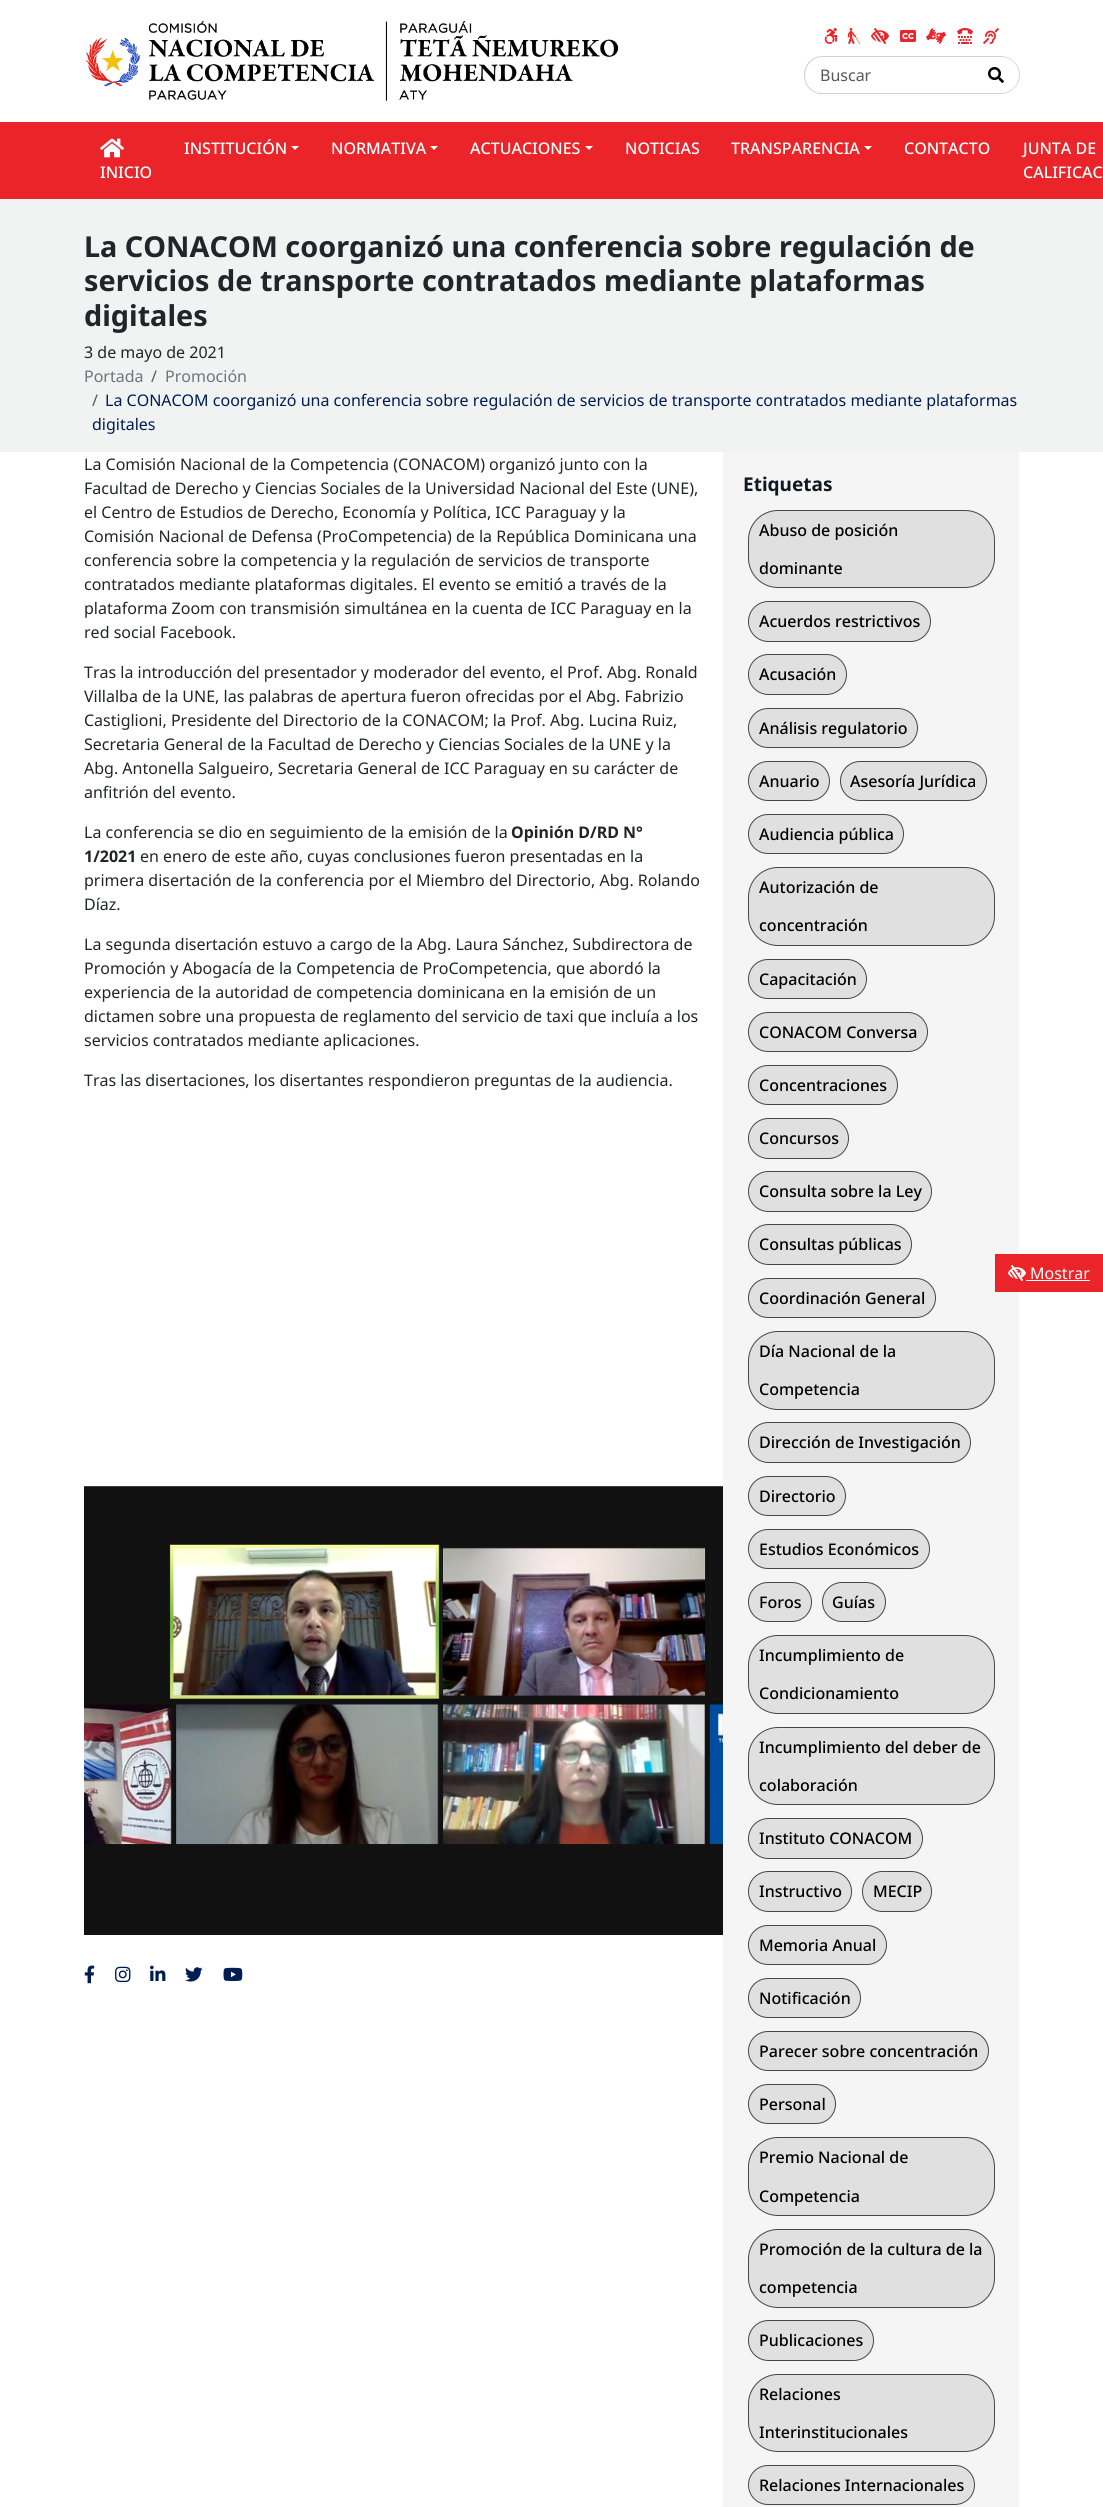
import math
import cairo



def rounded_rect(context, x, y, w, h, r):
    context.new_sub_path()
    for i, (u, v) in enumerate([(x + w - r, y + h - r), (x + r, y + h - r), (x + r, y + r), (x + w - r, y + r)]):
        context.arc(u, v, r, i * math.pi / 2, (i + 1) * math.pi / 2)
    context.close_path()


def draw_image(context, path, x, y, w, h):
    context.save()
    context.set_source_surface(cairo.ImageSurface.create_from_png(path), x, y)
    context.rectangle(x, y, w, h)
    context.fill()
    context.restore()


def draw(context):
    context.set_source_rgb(1, 1, 1)
    context.paint()
    draw_image(context, "images/1.png", 86, 20, 533, 81)
    draw_image(context, "images/2.png", 824, 28, 14, 16)
    draw_image(context, "images/3.png", 848, 28, 12, 16)
    draw_image(context, "images/4.png", 871, 28, 18, 16)
    draw_image(context, "images/5.png", 900, 30, 16, 12)
    draw_image(context, "images/6.png", 926, 28, 20, 16)
    draw_image(context, "images/7.png", 957, 28, 16, 16)
    draw_image(context, "images/8.png", 983, 28, 16, 16)
    context.set_source_rgb(206 / 255, 212 / 255, 218 / 255)
    context.set_fill_rule(cairo.FillRule.EVEN_ODD)
    context.new_path()
    context.move_to(823, 56)
    context.line_to(974, 56)
    context.line_to(974, 94)
    context.line_to(819, 94)
    context.curve_to(797, 89, 800, 56, 823, 56)
    context.close_path()
    context.move_to(823, 57)
    context.line_to(974, 57)
    context.line_to(974, 93)
    context.line_to(819, 93)
    context.curve_to(798, 88, 802, 57, 823, 57)
    context.close_path()
    context.fill()
    context.new_path()
    context.move_to(973, 56)
    context.line_to(1001, 56)
    context.curve_to(1011, 56, 1020, 65, 1020, 75)
    context.curve_to(1020, 85, 1011, 94, 1001, 94)
    context.line_to(973, 94)
    context.close_path()
    context.move_to(973, 57)
    context.line_to(1001, 57)
    context.curve_to(1011, 57, 1019, 65, 1019, 75)
    context.curve_to(1019, 85, 1011, 93, 1001, 93)
    context.line_to(973, 93)
    context.close_path()
    context.fill()
    draw_image(context, "images/9.png", 988, 67, 16, 16)
    context.set_source_rgb(234 / 255, 36 / 255, 40 / 255)
    context.rectangle(0, 122, 1103, 77)
    context.fill()
    draw_image(context, "images/10.png", 100, 138, 24, 20)
    context.set_source_rgb(1, 1, 1)
    context.set_fill_rule(cairo.FillRule.WINDING)
    context.new_path()
    context.move_to(291, 146)
    context.line_to(299, 146)
    context.line_to(295, 150)
    context.close_path()
    context.fill()
    context.new_path()
    context.move_to(430, 146)
    context.line_to(438, 146)
    context.line_to(434, 150)
    context.close_path()
    context.fill()
    context.new_path()
    context.move_to(585, 146)
    context.line_to(593, 146)
    context.line_to(589, 150)
    context.close_path()
    context.fill()
    context.new_path()
    context.move_to(864, 146)
    context.line_to(872, 146)
    context.line_to(868, 150)
    context.close_path()
    context.fill()
    context.set_source_rgb(241 / 255, 243 / 255, 242 / 255)
    context.rectangle(0, 199, 1103, 253)
    context.fill()
    draw_image(context, "images/11.png", 84, 1486, 639, 449)
    draw_image(context, "images/12.png", 84, 1965, 11, 19)
    draw_image(context, "images/13.png", 115, 1966, 16, 17)
    draw_image(context, "images/14.png", 150, 1965, 16, 16)
    draw_image(context, "images/15.png", 185, 1967, 18, 15)
    draw_image(context, "images/16.png", 223, 1967, 20, 14)
    context.set_source_rgb(245 / 255, 245 / 255, 245 / 255)
    context.rectangle(723, 452, 296, 2055)
    context.fill()
    context.set_source_rgb(224 / 255, 224 / 255, 224 / 255)
    rounded_rect(context, 748.5, 510.5, 246, 77, 29.5)
    context.fill_preserve()
    context.set_source_rgb(70 / 255, 71 / 255, 73 / 255)
    context.set_line_width(1)
    context.stroke()
    context.set_source_rgb(224 / 255, 224 / 255, 224 / 255)
    rounded_rect(context, 748.5, 601.5, 182, 40, 20)
    context.fill_preserve()
    context.set_source_rgb(70 / 255, 71 / 255, 73 / 255)
    context.stroke()
    context.set_source_rgb(224 / 255, 224 / 255, 224 / 255)
    rounded_rect(context, 748.5, 654.5, 98, 40, 20)
    context.fill_preserve()
    context.set_source_rgb(70 / 255, 71 / 255, 73 / 255)
    context.stroke()
    context.set_source_rgb(224 / 255, 224 / 255, 224 / 255)
    rounded_rect(context, 748.5, 708.5, 169, 39, 19.5)
    context.fill_preserve()
    context.set_source_rgb(70 / 255, 71 / 255, 73 / 255)
    context.stroke()
    context.set_source_rgb(224 / 255, 224 / 255, 224 / 255)
    rounded_rect(context, 748.5, 761.5, 81, 39, 19.5)
    context.fill_preserve()
    context.set_source_rgb(70 / 255, 71 / 255, 73 / 255)
    context.stroke()
    context.set_source_rgb(224 / 255, 224 / 255, 224 / 255)
    rounded_rect(context, 840.5, 761.5, 146, 39, 19.5)
    context.fill_preserve()
    context.set_source_rgb(70 / 255, 71 / 255, 73 / 255)
    context.stroke()
    context.set_source_rgb(224 / 255, 224 / 255, 224 / 255)
    rounded_rect(context, 748.5, 814.5, 155, 39, 19.5)
    context.fill_preserve()
    context.set_source_rgb(70 / 255, 71 / 255, 73 / 255)
    context.stroke()
    context.set_source_rgb(224 / 255, 224 / 255, 224 / 255)
    rounded_rect(context, 748.5, 867.5, 246, 78, 29.5)
    context.fill_preserve()
    context.set_source_rgb(70 / 255, 71 / 255, 73 / 255)
    context.stroke()
    context.set_source_rgb(224 / 255, 224 / 255, 224 / 255)
    rounded_rect(context, 748.5, 959.5, 118, 39, 19.5)
    context.fill_preserve()
    context.set_source_rgb(70 / 255, 71 / 255, 73 / 255)
    context.stroke()
    context.set_source_rgb(224 / 255, 224 / 255, 224 / 255)
    rounded_rect(context, 748.5, 1012.5, 179, 39, 19.5)
    context.fill_preserve()
    context.set_source_rgb(70 / 255, 71 / 255, 73 / 255)
    context.stroke()
    context.set_source_rgb(224 / 255, 224 / 255, 224 / 255)
    rounded_rect(context, 748.5, 1065.5, 149, 39, 19.5)
    context.fill_preserve()
    context.set_source_rgb(70 / 255, 71 / 255, 73 / 255)
    context.stroke()
    context.set_source_rgb(224 / 255, 224 / 255, 224 / 255)
    rounded_rect(context, 748.5, 1118.5, 100, 40, 20)
    context.fill_preserve()
    context.set_source_rgb(70 / 255, 71 / 255, 73 / 255)
    context.stroke()
    context.set_source_rgb(224 / 255, 224 / 255, 224 / 255)
    rounded_rect(context, 748.5, 1171.5, 183, 40, 20)
    context.fill_preserve()
    context.set_source_rgb(70 / 255, 71 / 255, 73 / 255)
    context.stroke()
    context.set_source_rgb(224 / 255, 224 / 255, 224 / 255)
    rounded_rect(context, 748.5, 1224.5, 163, 40, 20)
    context.fill_preserve()
    context.set_source_rgb(70 / 255, 71 / 255, 73 / 255)
    context.stroke()
    context.set_source_rgb(224 / 255, 224 / 255, 224 / 255)
    rounded_rect(context, 748.5, 1278.5, 187, 39, 19.5)
    context.fill_preserve()
    context.set_source_rgb(70 / 255, 71 / 255, 73 / 255)
    context.stroke()
    context.set_source_rgb(224 / 255, 224 / 255, 224 / 255)
    rounded_rect(context, 748.5, 1331.5, 246, 78, 29.5)
    context.fill_preserve()
    context.set_source_rgb(70 / 255, 71 / 255, 73 / 255)
    context.stroke()
    context.set_source_rgb(224 / 255, 224 / 255, 224 / 255)
    rounded_rect(context, 748.5, 1422.5, 222, 40, 20)
    context.fill_preserve()
    context.set_source_rgb(70 / 255, 71 / 255, 73 / 255)
    context.stroke()
    context.set_source_rgb(224 / 255, 224 / 255, 224 / 255)
    rounded_rect(context, 748.5, 1476.5, 97, 39, 19.5)
    context.fill_preserve()
    context.set_source_rgb(70 / 255, 71 / 255, 73 / 255)
    context.stroke()
    context.set_source_rgb(224 / 255, 224 / 255, 224 / 255)
    rounded_rect(context, 748.5, 1529.5, 181, 39, 19.5)
    context.fill_preserve()
    context.set_source_rgb(70 / 255, 71 / 255, 73 / 255)
    context.stroke()
    context.set_source_rgb(224 / 255, 224 / 255, 224 / 255)
    rounded_rect(context, 748.5, 1582.5, 63, 39, 19.5)
    context.fill_preserve()
    context.set_source_rgb(70 / 255, 71 / 255, 73 / 255)
    context.stroke()
    context.set_source_rgb(224 / 255, 224 / 255, 224 / 255)
    rounded_rect(context, 822.5, 1582.5, 63, 39, 19.5)
    context.fill_preserve()
    context.set_source_rgb(70 / 255, 71 / 255, 73 / 255)
    context.stroke()
    context.set_source_rgb(224 / 255, 224 / 255, 224 / 255)
    rounded_rect(context, 748.5, 1635.5, 246, 78, 29.5)
    context.fill_preserve()
    context.set_source_rgb(70 / 255, 71 / 255, 73 / 255)
    context.stroke()
    context.set_source_rgb(224 / 255, 224 / 255, 224 / 255)
    rounded_rect(context, 748.5, 1727.5, 246, 77, 29.5)
    context.fill_preserve()
    context.set_source_rgb(70 / 255, 71 / 255, 73 / 255)
    context.stroke()
    context.set_source_rgb(224 / 255, 224 / 255, 224 / 255)
    rounded_rect(context, 748.5, 1818.5, 174, 40, 20)
    context.fill_preserve()
    context.set_source_rgb(70 / 255, 71 / 255, 73 / 255)
    context.stroke()
    context.set_source_rgb(224 / 255, 224 / 255, 224 / 255)
    rounded_rect(context, 748.5, 1871.5, 103, 40, 20)
    context.fill_preserve()
    context.set_source_rgb(70 / 255, 71 / 255, 73 / 255)
    context.stroke()
    context.set_source_rgb(224 / 255, 224 / 255, 224 / 255)
    rounded_rect(context, 862.5, 1871.5, 69, 40, 20)
    context.fill_preserve()
    context.set_source_rgb(70 / 255, 71 / 255, 73 / 255)
    context.stroke()
    context.set_source_rgb(224 / 255, 224 / 255, 224 / 255)
    rounded_rect(context, 748.5, 1925.5, 138, 39, 19.5)
    context.fill_preserve()
    context.set_source_rgb(70 / 255, 71 / 255, 73 / 255)
    context.stroke()
    context.set_source_rgb(224 / 255, 224 / 255, 224 / 255)
    rounded_rect(context, 748.5, 1978.5, 112, 39, 19.5)
    context.fill_preserve()
    context.set_source_rgb(70 / 255, 71 / 255, 73 / 255)
    context.stroke()
    context.set_source_rgb(224 / 255, 224 / 255, 224 / 255)
    rounded_rect(context, 748.5, 2031.5, 240, 39, 19.5)
    context.fill_preserve()
    context.set_source_rgb(70 / 255, 71 / 255, 73 / 255)
    context.stroke()
    context.set_source_rgb(224 / 255, 224 / 255, 224 / 255)
    rounded_rect(context, 748.5, 2084.5, 87, 39, 19.5)
    context.fill_preserve()
    context.set_source_rgb(70 / 255, 71 / 255, 73 / 255)
    context.stroke()
    context.set_source_rgb(224 / 255, 224 / 255, 224 / 255)
    rounded_rect(context, 748.5, 2137.5, 246, 78, 29.5)
    context.fill_preserve()
    context.set_source_rgb(70 / 255, 71 / 255, 73 / 255)
    context.stroke()
    context.set_source_rgb(224 / 255, 224 / 255, 224 / 255)
    rounded_rect(context, 748.5, 2229.5, 246, 78, 29.5)
    context.fill_preserve()
    context.set_source_rgb(70 / 255, 71 / 255, 73 / 255)
    context.stroke()
    context.set_source_rgb(224 / 255, 224 / 255, 224 / 255)
    rounded_rect(context, 748.5, 2320.5, 125, 40, 20)
    context.fill_preserve()
    context.set_source_rgb(70 / 255, 71 / 255, 73 / 255)
    context.stroke()
    context.set_source_rgb(224 / 255, 224 / 255, 224 / 255)
    rounded_rect(context, 748.5, 2374.5, 246, 77, 29.5)
    context.fill_preserve()
    context.set_source_rgb(70 / 255, 71 / 255, 73 / 255)
    context.stroke()
    context.set_source_rgb(224 / 255, 224 / 255, 224 / 255)
    rounded_rect(context, 748.5, 2465.5, 226, 39, 19.5)
    context.fill_preserve()
    context.set_source_rgb(70 / 255, 71 / 255, 73 / 255)
    context.stroke()
    context.set_source_rgb(234 / 255, 36 / 255, 40 / 255)
    context.rectangle(995, 1254, 108, 38)
    context.fill()
    draw_image(context, "images/17.png", 1008, 1265, 18, 16)
    context.set_source_rgb(1, 1, 1)
    context.rectangle(1026, 1280, 64, 1)
    context.fill()
    context.select_font_face("Noto Sans")
    context.set_font_size(16)
    context.set_source_rgb(85 / 255, 89 / 255, 91 / 255)
    context.move_to(820, 81)
    context.show_text("Buscar")
    context.select_font_face("Noto Sans Medium")
    context.set_source_rgb(1, 1, 1)
    context.move_to(100, 178)
    context.show_text("INICIO")
    context.move_to(184, 154)
    context.show_text("INSTITUCIÓN")
    context.move_to(331, 154)
    context.show_text("NORMATIVA")
    context.move_to(470, 154)
    context.show_text("ACTUACIONES")
    context.move_to(625, 154)
    context.show_text("NOTICIAS")
    context.move_to(731, 154)
    context.show_text("TRANSPARENCIA")
    context.move_to(904, 154)
    context.show_text("CONTACTO")
    context.move_to(1023, 154)
    context.show_text("JUNTA DE")
    context.move_to(1023, 178)
    context.show_text("CALIFICAC")
    context.select_font_face("Noto Sans", cairo.FontSlant.NORMAL, cairo.FontWeight.BOLD)
    context.set_font_size(28.8)
    context.set_source_rgb(33 / 255, 37 / 255, 41 / 255)
    context.move_to(84, 257)
    context.show_text("La CONACOM coorganizó una conferencia sobre regulación de")
    context.move_to(84, 291)
    context.show_text("servicios de transporte contratados mediante plataformas")
    context.move_to(84, 326)
    context.show_text("digitales")
    context.select_font_face("Noto Sans")
    context.set_font_size(16)
    context.move_to(84, 358)
    context.show_text("3 de mayo de 2021")
    context.set_source_rgb(108 / 255, 117 / 255, 125 / 255)
    context.move_to(84, 382)
    context.show_text("Portada")
    context.set_source_rgb(85 / 255, 89 / 255, 91 / 255)
    context.move_to(151, 382)
    context.show_text("/")
    context.set_source_rgb(108 / 255, 117 / 255, 125 / 255)
    context.move_to(165, 382)
    context.show_text("Promoción")
    context.set_source_rgb(85 / 255, 89 / 255, 91 / 255)
    context.move_to(92, 406)
    context.show_text("/")
    context.set_source_rgb(0, 28 / 255, 84 / 255)
    context.move_to(105, 406)
    context.show_text("La CONACOM coorganizó una conferencia sobre regulación de servicios de transporte contratados mediante plataformas")
    context.move_to(92, 430)
    context.show_text("digitales")
    context.set_source_rgb(33 / 255, 37 / 255, 41 / 255)
    context.move_to(84, 470)
    context.show_text("La Comisión Nacional de la Competencia (CONACOM) organizó junto con la")
    context.move_to(84, 494)
    context.show_text("Facultad de Derecho y Ciencias Sociales de la Universidad Nacional del Este (UNE),")
    context.move_to(84, 518)
    context.show_text("el Centro de Estudios de Derecho, Economía y Política, ICC Paraguay y la")
    context.move_to(84, 542)
    context.show_text("Comisión Nacional de Defensa (ProCompetencia) de la República Dominicana una")
    context.move_to(84, 566)
    context.show_text("conferencia sobre la competencia y la regulación de servicios de transporte")
    context.move_to(84, 590)
    context.show_text("contratados mediante plataformas digitales. El evento se emitió a través de la")
    context.move_to(84, 614)
    context.show_text("plataforma Zoom con transmisión simultánea en la cuenta de ICC Paraguay en la")
    context.move_to(84, 638)
    context.show_text("red social Facebook.")
    context.move_to(84, 678)
    context.show_text("Tras la introducción del presentador y moderador del evento, el Prof. Abg. Ronald")
    context.move_to(84, 702)
    context.show_text("Villalba de la UNE, las palabras de apertura fueron ofrecidas por el Abg. Fabrizio")
    context.move_to(84, 726)
    context.show_text("Castiglioni, Presidente del Directorio de la CONACOM; la Prof. Abg. Lucina Ruiz,")
    context.move_to(84, 750)
    context.show_text("Secretaria General de la Facultad de Derecho y Ciencias Sociales de la UNE y la")
    context.move_to(84, 774)
    context.show_text("Abg. Antonella Salgueiro, Secretaria General de ICC Paraguay en su carácter de")
    context.move_to(84, 798)
    context.show_text("anfitrión del evento.")
    context.move_to(84, 838)
    context.show_text("La conferencia se dio en seguimiento de la emisión de la")
    context.select_font_face("Noto Sans", cairo.FontSlant.NORMAL, cairo.FontWeight.BOLD)
    context.move_to(511, 838)
    context.show_text("Opinión D/RD N°")
    context.move_to(84, 862)
    context.show_text("1/2021")
    context.select_font_face("Noto Sans")
    context.move_to(140, 862)
    context.show_text("en enero de este año, cuyas conclusiones fueron presentadas en la")
    context.move_to(84, 886)
    context.show_text("primera disertación de la conferencia por el Miembro del Directorio, Abg. Rolando")
    context.move_to(84, 910)
    context.show_text("Díaz.")
    context.move_to(84, 950)
    context.show_text("La segunda disertación estuvo a cargo de la Abg. Laura Sánchez, Subdirectora de")
    context.move_to(84, 974)
    context.show_text("Promoción y Abogacía de la Competencia de ProCompetencia, que abordó la")
    context.move_to(84, 998)
    context.show_text("experiencia de la autoridad de competencia dominicana en la emisión de un")
    context.move_to(84, 1022)
    context.show_text("dictamen sobre una propuesta de reglamento del servicio de taxi que incluía a los")
    context.move_to(84, 1046)
    context.show_text("servicios contratados mediante aplicaciones.")
    context.move_to(84, 1086)
    context.show_text("Tras las disertaciones, los disertantes respondieron preguntas de la audiencia.")
    context.select_font_face("Noto Sans", cairo.FontSlant.NORMAL, cairo.FontWeight.BOLD)
    context.set_font_size(19)
    context.set_source_rgb(14 / 255, 24 / 255, 32 / 255)
    context.move_to(743, 491)
    context.show_text("Etiquetas")
    context.select_font_face("Noto Sans Medium")
    context.set_font_size(16)
    context.set_source_rgb(0, 0, 0)
    context.move_to(759, 536)
    context.show_text("Abuso de posición")
    context.move_to(759, 574)
    context.show_text("dominante")
    context.move_to(759, 627)
    context.show_text("Acuerdos restrictivos")
    context.move_to(759, 680)
    context.show_text("Acusación")
    context.move_to(759, 734)
    context.show_text("Análisis regulatorio")
    context.move_to(759, 787)
    context.show_text("Anuario")
    context.move_to(850, 787)
    context.show_text("Asesoría Jurídica")
    context.move_to(759, 840)
    context.show_text("Audiencia pública")
    context.move_to(759, 893)
    context.show_text("Autorización de")
    context.move_to(759, 931)
    context.show_text("concentración")
    context.move_to(759, 985)
    context.show_text("Capacitación")
    context.move_to(759, 1038)
    context.show_text("CONACOM Conversa")
    context.move_to(759, 1091)
    context.show_text("Concentraciones")
    context.move_to(759, 1144)
    context.show_text("Concursos")
    context.move_to(759, 1197)
    context.show_text("Consulta sobre la Ley")
    context.move_to(759, 1250)
    context.show_text("Consultas públicas")
    context.move_to(759, 1304)
    context.show_text("Coordinación General")
    context.move_to(759, 1357)
    context.show_text("Día Nacional de la")
    context.move_to(759, 1395)
    context.show_text("Competencia")
    context.move_to(759, 1448)
    context.show_text("Dirección de Investigación")
    context.move_to(759, 1502)
    context.show_text("Directorio")
    context.move_to(759, 1555)
    context.show_text("Estudios Económicos")
    context.move_to(759, 1608)
    context.show_text("Foros")
    context.move_to(832, 1608)
    context.show_text("Guías")
    context.move_to(759, 1661)
    context.show_text("Incumplimiento de")
    context.move_to(759, 1699)
    context.show_text("Condicionamiento")
    context.move_to(759, 1753)
    context.show_text("Incumplimiento del deber de")
    context.move_to(759, 1791)
    context.show_text("colaboración")
    context.move_to(759, 1844)
    context.show_text("Instituto CONACOM")
    context.move_to(759, 1897)
    context.show_text("Instructivo")
    context.move_to(873, 1897)
    context.show_text("MECIP")
    context.move_to(759, 1951)
    context.show_text("Memoria Anual")
    context.move_to(759, 2004)
    context.show_text("Notificación")
    context.move_to(759, 2057)
    context.show_text("Parecer sobre concentración")
    context.move_to(759, 2110)
    context.show_text("Personal")
    context.move_to(759, 2163)
    context.show_text("Premio Nacional de")
    context.move_to(759, 2202)
    context.show_text("Competencia")
    context.move_to(759, 2255)
    context.show_text("Promoción de la cultura de la")
    context.move_to(759, 2293)
    context.show_text("competencia")
    context.move_to(759, 2346)
    context.show_text("Publicaciones")
    context.move_to(759, 2400)
    context.show_text("Relaciones")
    context.move_to(759, 2438)
    context.show_text("Interinstitucionales")
    context.move_to(759, 2491)
    context.show_text("Relaciones Internacionales")
    context.select_font_face("Noto Sans")
    context.set_source_rgb(1, 1, 1)
    context.move_to(1030, 1279)
    context.show_text("Mostrar")


surface = cairo.ImageSurface(cairo.Format.RGB24, 1103, 2507)
context = cairo.Context(surface)
options = cairo.FontOptions()
options.set_hint_metrics(cairo.HintMetrics.OFF)
options.set_hint_style(cairo.HintStyle.NONE)
context.set_font_options(options)
context.set_miter_limit(4)
draw(context)
surface.write_to_png("out.png")
